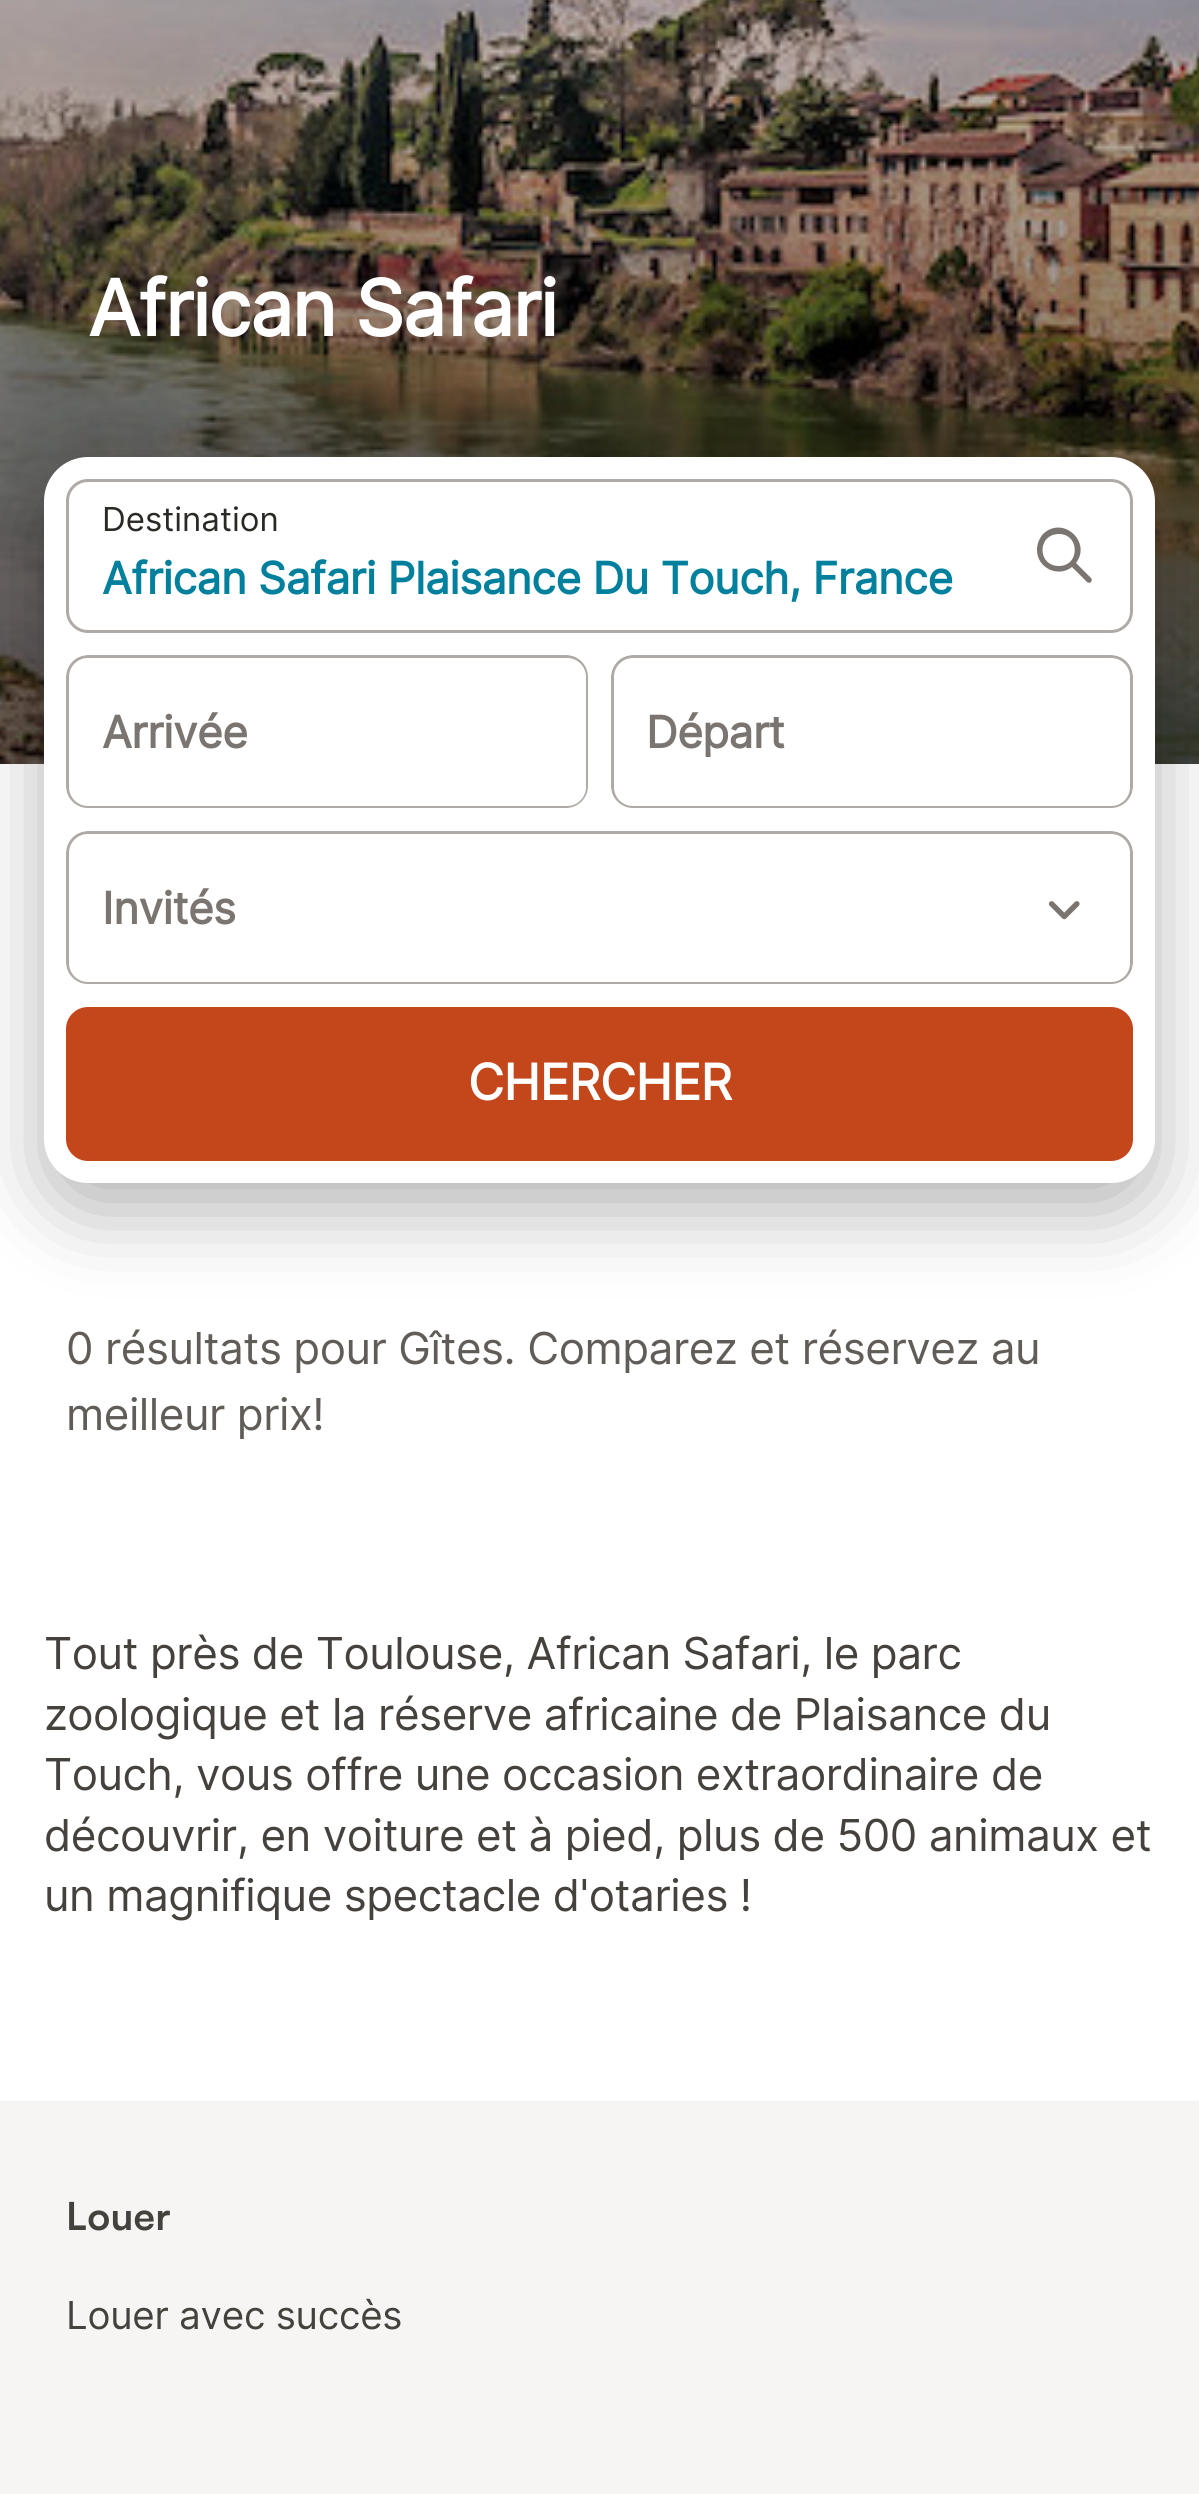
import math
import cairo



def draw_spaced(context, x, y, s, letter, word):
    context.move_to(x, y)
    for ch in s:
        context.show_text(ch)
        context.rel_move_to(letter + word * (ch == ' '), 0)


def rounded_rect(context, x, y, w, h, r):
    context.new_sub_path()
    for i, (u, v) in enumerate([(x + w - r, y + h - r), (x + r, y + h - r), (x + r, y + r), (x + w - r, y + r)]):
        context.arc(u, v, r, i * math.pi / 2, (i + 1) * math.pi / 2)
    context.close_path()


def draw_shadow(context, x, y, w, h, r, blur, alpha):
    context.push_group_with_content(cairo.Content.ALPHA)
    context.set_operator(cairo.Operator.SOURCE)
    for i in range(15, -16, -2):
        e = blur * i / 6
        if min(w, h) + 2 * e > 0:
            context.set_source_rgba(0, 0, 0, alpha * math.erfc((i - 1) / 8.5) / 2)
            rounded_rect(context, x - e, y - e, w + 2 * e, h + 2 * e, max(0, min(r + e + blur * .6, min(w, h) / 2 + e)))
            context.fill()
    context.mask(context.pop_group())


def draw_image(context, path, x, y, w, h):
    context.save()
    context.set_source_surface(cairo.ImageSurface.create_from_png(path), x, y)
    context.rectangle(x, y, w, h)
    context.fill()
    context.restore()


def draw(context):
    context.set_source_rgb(1, 1, 1)
    context.paint()
    draw_image(context, "images/1.png", 0, 0, 1199, 764)
    context.set_source_rgb(0, 0, 0)
    draw_shadow(context, 44, 484, 1111, 726, 44, 41, 0.3)
    context.set_source_rgb(1, 1, 1)
    rounded_rect(context, 44, 457, 1111, 726, 44)
    context.fill()
    rounded_rect(context, 67.5, 480.5, 1064, 151, 20.5)
    context.set_source_rgb(175 / 255, 170 / 255, 165 / 255)
    context.set_line_width(3)
    context.stroke()
    context.set_source_rgb(122 / 255, 117 / 255, 112 / 255)
    context.set_fill_rule(cairo.FillRule.EVEN_ODD)
    context.new_path()
    context.move_to(1059, 534)
    context.curve_to(1037, 534, 1037, 566, 1059, 566)
    context.curve_to(1080, 566, 1080, 534, 1059, 534)
    context.close_path()
    context.move_to(1037, 550)
    context.curve_to(1037, 544, 1039, 539, 1043, 534)
    context.curve_to(1063, 515, 1092, 542, 1076, 563)
    context.line_to(1091, 578)
    context.curve_to(1092, 579, 1092, 581, 1091, 582)
    context.curve_to(1090, 583, 1088, 583, 1087, 582)
    context.line_to(1072, 567)
    context.curve_to(1058, 578, 1037, 568, 1037, 550)
    context.close_path()
    context.fill()
    rounded_rect(context, 67.5, 656.5, 520, 151, 20.5)
    context.set_source_rgb(175 / 255, 170 / 255, 165 / 255)
    context.stroke()
    rounded_rect(context, 64.5, 653.5, 525, 156, 23.5)
    context.set_source_rgb(1, 1, 1)
    context.stroke()
    rounded_rect(context, 612.5, 656.5, 519, 151, 20.5)
    context.set_source_rgb(175 / 255, 170 / 255, 165 / 255)
    context.stroke()
    rounded_rect(context, 609.5, 653.5, 525, 156, 23.5)
    context.set_source_rgb(1, 1, 1)
    context.stroke()
    rounded_rect(context, 67.5, 832.5, 1064, 151, 20.5)
    context.set_source_rgb(175 / 255, 170 / 255, 165 / 255)
    context.stroke()
    rounded_rect(context, 64.5, 829.5, 1070, 156, 23.5)
    context.set_source_rgb(1, 1, 1)
    context.stroke()
    draw_image(context, "images/2.png", 1048, 901, 32, 19)
    context.set_source_rgb(195 / 255, 71 / 255, 27 / 255)
    rounded_rect(context, 66, 1007, 1067, 154, 22)
    context.fill()
    context.set_source_rgb(247 / 255, 245 / 255, 243 / 255)
    context.rectangle(0, 2101, 1199, 393)
    context.fill()
    context.select_font_face("Inter", cairo.FontSlant.NORMAL, cairo.FontWeight.BOLD)
    context.set_font_size(77)
    context.set_source_rgb(1, 1, 1)
    draw_spaced(context, 88, 336, "African Safari", -1.6, 0)
    context.select_font_face("Inter")
    context.set_font_size(33)
    context.set_source_rgb(43 / 255, 41 / 255, 38 / 255)
    context.move_to(102, 531)
    context.show_text("Destination")
    context.select_font_face("Inter", cairo.FontSlant.NORMAL, cairo.FontWeight.BOLD)
    context.set_font_size(44)
    context.set_source_rgb(0, 128 / 255, 157 / 255)
    draw_spaced(context, 102, 594, "African Safari Plaisance Du Touch, France", -0.48, 0)
    context.set_source_rgb(122 / 255, 117 / 255, 112 / 255)
    draw_spaced(context, 102, 748, "Arrivée", -0.48, 0)
    draw_spaced(context, 646, 748, "Départ", -0.48, 0)
    draw_spaced(context, 102, 924, "Invités", -0.48, 0)
    context.set_font_size(49.5)
    context.set_source_rgb(1, 1, 1)
    draw_spaced(context, 468, 1100, "CHERCHER", -0.5, 0)
    context.select_font_face("Inter")
    context.set_font_size(44)
    context.set_source_rgb(96 / 255, 92 / 255, 87 / 255)
    draw_spaced(context, 66, 1364, "0 résultats pour Gîtes. Comparez et réservez au", -0.48, 0)
    draw_spaced(context, 66, 1430, "meilleur prix!", -0.48, 0)
    context.set_source_rgb(69 / 255, 66 / 255, 62 / 255)
    draw_spaced(context, 44, 1669, "Tout près de Toulouse, African Safari, le parc", -0.48, 0)
    draw_spaced(context, 44, 1730, "zoologique et la réserve africaine de Plaisance du", -0.48, 0)
    draw_spaced(context, 44, 1790, "Touch, vous offre une occasion extraordinaire de", -0.48, 0)
    draw_spaced(context, 44, 1851, "découvrir, en voiture et à pied, plus de 500 animaux et", -0.48, 0)
    draw_spaced(context, 44, 1911, "un magnifique spectacle d'otaries !", -0.48, 0)
    context.select_font_face("Satoshi", cairo.FontSlant.NORMAL, cairo.FontWeight.BOLD)
    context.set_font_size(38.5)
    draw_spaced(context, 66, 2230, "Louer", 0.5, 0)
    context.select_font_face("Inter")
    draw_spaced(context, 66, 2329, "Louer avec succès", -0.25, 0)


surface = cairo.ImageSurface(cairo.Format.RGB24, 1199, 2494)
context = cairo.Context(surface)
options = cairo.FontOptions()
options.set_hint_metrics(cairo.HintMetrics.OFF)
options.set_hint_style(cairo.HintStyle.NONE)
context.set_font_options(options)
context.set_miter_limit(4)
draw(context)
surface.write_to_png("out.png")
